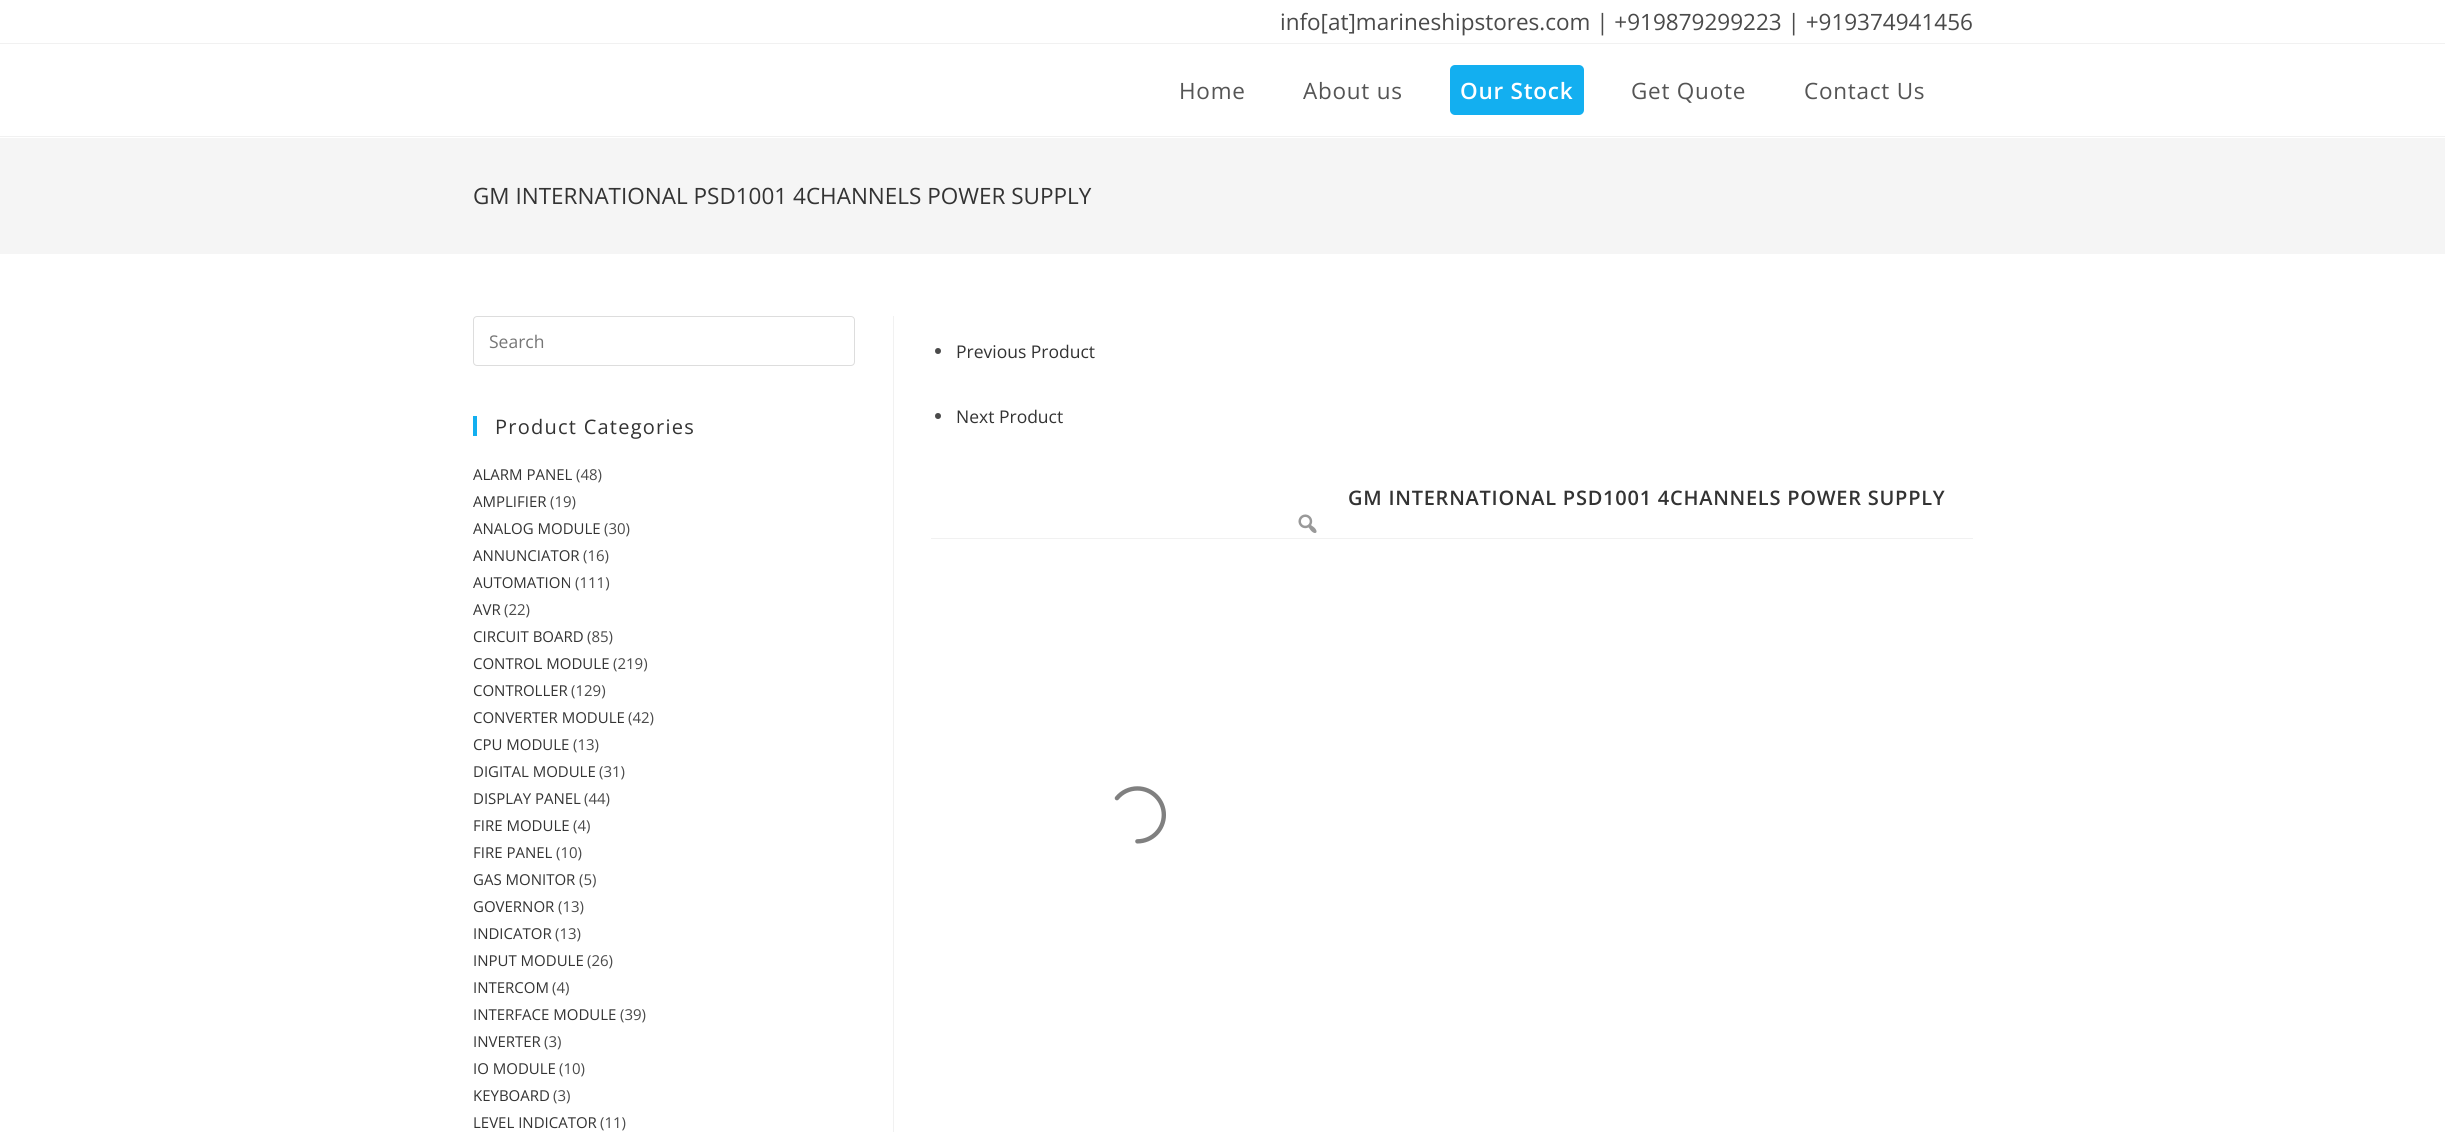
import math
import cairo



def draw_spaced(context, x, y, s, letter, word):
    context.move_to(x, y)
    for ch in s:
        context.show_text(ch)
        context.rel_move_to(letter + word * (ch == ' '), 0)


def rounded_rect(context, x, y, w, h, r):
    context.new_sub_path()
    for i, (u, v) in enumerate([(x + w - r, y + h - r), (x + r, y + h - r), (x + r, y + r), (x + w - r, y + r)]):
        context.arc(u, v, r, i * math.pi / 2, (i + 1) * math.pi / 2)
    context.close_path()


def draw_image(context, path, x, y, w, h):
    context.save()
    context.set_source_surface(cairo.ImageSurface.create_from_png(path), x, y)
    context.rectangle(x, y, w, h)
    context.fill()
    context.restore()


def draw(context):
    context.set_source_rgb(1, 1, 1)
    context.paint()
    context.set_source_rgb(241 / 255, 241 / 255, 241 / 255)
    context.rectangle(0, 43, 2445, 1)
    context.fill()
    context.rectangle(0, 136, 2445, 1)
    context.fill()
    context.set_source_rgb(19 / 255, 175 / 255, 240 / 255)
    rounded_rect(context, 1450, 65, 134, 50, 5)
    context.fill()
    context.set_source_rgb(245 / 255, 245 / 255, 245 / 255)
    context.rectangle(0, 138, 2445, 116)
    context.fill()
    rounded_rect(context, 473.5, 316.5, 381, 49, 3.5)
    context.set_source_rgb(221 / 255, 221 / 255, 221 / 255)
    context.set_line_width(1)
    context.stroke()
    context.set_source_rgb(19 / 255, 175 / 255, 240 / 255)
    context.rectangle(473, 416, 4, 20)
    context.fill()
    context.set_source_rgb(241 / 255, 241 / 255, 241 / 255)
    context.rectangle(893, 316, 1, 816)
    context.fill()
    context.set_source_rgb(74 / 255, 74 / 255, 74 / 255)
    context.arc(938, 351, 3, 0, 2 * math.pi)
    context.fill()
    context.arc(938, 416, 3, 0, 2 * math.pi)
    context.fill()
    context.set_source_rgb(241 / 255, 241 / 255, 241 / 255)
    context.rectangle(931, 538, 1042, 1)
    context.fill()
    draw_image(context, "images/1.png", 1298, 514, 19, 19)
    draw_image(context, "images/2.png", 1114, 786, 52, 58)
    context.select_font_face("Open Sans")
    context.set_font_size(22.5)
    context.set_source_rgb(74 / 255, 74 / 255, 74 / 255)
    context.move_to(1280, 30)
    context.show_text("info[at]marineshipstores.com | +919879299223 | +919374941456")
    context.set_source_rgb(85 / 255, 85 / 255, 85 / 255)
    draw_spaced(context, 1179, 99, "Home", 0.75, 0)
    draw_spaced(context, 1303, 99, "About us", 0.75, 0)
    context.select_font_face("Open Sans SemiBold")
    context.set_source_rgb(1, 1, 1)
    draw_spaced(context, 1460, 99, "Our Stock", 0.75, 0)
    context.select_font_face("Open Sans")
    context.set_source_rgb(85 / 255, 85 / 255, 85 / 255)
    draw_spaced(context, 1631, 99, "Get Quote", 0.75, 0)
    draw_spaced(context, 1804, 99, "Contact Us", 0.75, 0)
    context.set_source_rgb(51 / 255, 51 / 255, 51 / 255)
    context.move_to(473, 204)
    context.show_text("GM INTERNATIONAL PSD1001 4CHANNELS POWER SUPPLY")
    context.set_font_size(17.5)
    context.set_source_rgb(117 / 255, 117 / 255, 117 / 255)
    context.move_to(489, 348)
    context.show_text("Search")
    context.set_font_size(20)
    context.set_source_rgb(51 / 255, 51 / 255, 51 / 255)
    draw_spaced(context, 495, 434, "Product Categories", 1.25, 0)
    context.set_font_size(15)
    context.move_to(473, 480)
    context.show_text("ALARM PANEL")
    context.set_source_rgb(74 / 255, 74 / 255, 74 / 255)
    context.move_to(576, 480)
    context.show_text("(48)")
    context.set_source_rgb(51 / 255, 51 / 255, 51 / 255)
    context.move_to(473, 507)
    context.show_text("AMPLIFIER")
    context.set_source_rgb(74 / 255, 74 / 255, 74 / 255)
    context.move_to(550, 507)
    context.show_text("(19)")
    context.set_source_rgb(51 / 255, 51 / 255, 51 / 255)
    context.move_to(473, 534)
    context.show_text("ANALOG MODULE")
    context.set_source_rgb(74 / 255, 74 / 255, 74 / 255)
    context.move_to(604, 534)
    context.show_text("(30)")
    context.set_source_rgb(51 / 255, 51 / 255, 51 / 255)
    context.move_to(473, 561)
    context.show_text("ANNUNCIATOR")
    context.set_source_rgb(74 / 255, 74 / 255, 74 / 255)
    context.move_to(583, 561)
    context.show_text("(16)")
    context.set_source_rgb(51 / 255, 51 / 255, 51 / 255)
    context.move_to(473, 588)
    context.show_text("AUTOMATION")
    context.set_source_rgb(74 / 255, 74 / 255, 74 / 255)
    context.move_to(575, 588)
    context.show_text("(111)")
    context.set_source_rgb(51 / 255, 51 / 255, 51 / 255)
    context.move_to(473, 615)
    context.show_text("AVR")
    context.set_source_rgb(74 / 255, 74 / 255, 74 / 255)
    context.move_to(504, 615)
    context.show_text("(22)")
    context.set_source_rgb(51 / 255, 51 / 255, 51 / 255)
    context.move_to(473, 642)
    context.show_text("CIRCUIT BOARD")
    context.set_source_rgb(74 / 255, 74 / 255, 74 / 255)
    context.move_to(587, 642)
    context.show_text("(85)")
    context.set_source_rgb(51 / 255, 51 / 255, 51 / 255)
    context.move_to(473, 669)
    context.show_text("CONTROL MODULE")
    context.set_source_rgb(74 / 255, 74 / 255, 74 / 255)
    context.move_to(613, 669)
    context.show_text("(219)")
    context.set_source_rgb(51 / 255, 51 / 255, 51 / 255)
    context.move_to(473, 696)
    context.show_text("CONTROLLER")
    context.set_source_rgb(74 / 255, 74 / 255, 74 / 255)
    context.move_to(571, 696)
    context.show_text("(129)")
    context.set_source_rgb(51 / 255, 51 / 255, 51 / 255)
    context.move_to(473, 723)
    context.show_text("CONVERTER MODULE")
    context.set_source_rgb(74 / 255, 74 / 255, 74 / 255)
    context.move_to(628, 723)
    context.show_text("(42)")
    context.set_source_rgb(51 / 255, 51 / 255, 51 / 255)
    context.move_to(473, 750)
    context.show_text("CPU MODULE")
    context.set_source_rgb(74 / 255, 74 / 255, 74 / 255)
    context.move_to(573, 750)
    context.show_text("(13)")
    context.set_source_rgb(51 / 255, 51 / 255, 51 / 255)
    context.move_to(473, 777)
    context.show_text("DIGITAL MODULE")
    context.set_source_rgb(74 / 255, 74 / 255, 74 / 255)
    context.move_to(599, 777)
    context.show_text("(31)")
    context.set_source_rgb(51 / 255, 51 / 255, 51 / 255)
    context.move_to(473, 804)
    context.show_text("DISPLAY PANEL")
    context.set_source_rgb(74 / 255, 74 / 255, 74 / 255)
    context.move_to(584, 804)
    context.show_text("(44)")
    context.set_source_rgb(51 / 255, 51 / 255, 51 / 255)
    context.move_to(473, 831)
    context.show_text("FIRE MODULE")
    context.set_source_rgb(74 / 255, 74 / 255, 74 / 255)
    context.move_to(573, 831)
    context.show_text("(4)")
    context.set_source_rgb(51 / 255, 51 / 255, 51 / 255)
    context.move_to(473, 858)
    context.show_text("FIRE PANEL")
    context.set_source_rgb(74 / 255, 74 / 255, 74 / 255)
    context.move_to(556, 858)
    context.show_text("(10)")
    context.set_source_rgb(51 / 255, 51 / 255, 51 / 255)
    context.move_to(473, 885)
    context.show_text("GAS MONITOR")
    context.set_source_rgb(74 / 255, 74 / 255, 74 / 255)
    context.move_to(579, 885)
    context.show_text("(5)")
    context.set_source_rgb(51 / 255, 51 / 255, 51 / 255)
    context.move_to(473, 912)
    context.show_text("GOVERNOR")
    context.set_source_rgb(74 / 255, 74 / 255, 74 / 255)
    context.move_to(558, 912)
    context.show_text("(13)")
    context.set_source_rgb(51 / 255, 51 / 255, 51 / 255)
    context.move_to(473, 939)
    context.show_text("INDICATOR")
    context.set_source_rgb(74 / 255, 74 / 255, 74 / 255)
    context.move_to(555, 939)
    context.show_text("(13)")
    context.set_source_rgb(51 / 255, 51 / 255, 51 / 255)
    context.move_to(473, 966)
    context.show_text("INPUT MODULE")
    context.set_source_rgb(74 / 255, 74 / 255, 74 / 255)
    context.move_to(587, 966)
    context.show_text("(26)")
    context.set_source_rgb(51 / 255, 51 / 255, 51 / 255)
    context.move_to(473, 993)
    context.show_text("INTERCOM")
    context.set_source_rgb(74 / 255, 74 / 255, 74 / 255)
    context.move_to(552, 993)
    context.show_text("(4)")
    context.set_source_rgb(51 / 255, 51 / 255, 51 / 255)
    context.move_to(473, 1020)
    context.show_text("INTERFACE MODULE")
    context.set_source_rgb(74 / 255, 74 / 255, 74 / 255)
    context.move_to(620, 1020)
    context.show_text("(39)")
    context.set_source_rgb(51 / 255, 51 / 255, 51 / 255)
    context.move_to(473, 1047)
    context.show_text("INVERTER")
    context.set_source_rgb(74 / 255, 74 / 255, 74 / 255)
    context.move_to(544, 1047)
    context.show_text("(3)")
    context.set_source_rgb(51 / 255, 51 / 255, 51 / 255)
    context.move_to(473, 1074)
    context.show_text("IO MODULE")
    context.set_source_rgb(74 / 255, 74 / 255, 74 / 255)
    context.move_to(559, 1074)
    context.show_text("(10)")
    context.set_source_rgb(51 / 255, 51 / 255, 51 / 255)
    context.move_to(473, 1101)
    context.show_text("KEYBOARD")
    context.set_source_rgb(74 / 255, 74 / 255, 74 / 255)
    context.move_to(553, 1101)
    context.show_text("(3)")
    context.set_source_rgb(51 / 255, 51 / 255, 51 / 255)
    context.move_to(473, 1128)
    context.show_text("LEVEL INDICATOR")
    context.set_source_rgb(74 / 255, 74 / 255, 74 / 255)
    context.move_to(600, 1128)
    context.show_text("(11)")
    context.set_font_size(17.5)
    context.set_source_rgb(51 / 255, 51 / 255, 51 / 255)
    context.move_to(956, 358)
    context.show_text("Previous Product")
    context.move_to(956, 423)
    context.show_text("Next Product")
    context.select_font_face("Open Sans SemiBold")
    context.set_font_size(20)
    draw_spaced(context, 1348, 505, "GM INTERNATIONAL PSD1001 4CHANNELS POWER SUPPLY", 0.75, 0)


surface = cairo.ImageSurface(cairo.Format.RGB24, 2445, 1132)
context = cairo.Context(surface)
options = cairo.FontOptions()
options.set_hint_metrics(cairo.HintMetrics.OFF)
options.set_hint_style(cairo.HintStyle.NONE)
context.set_font_options(options)
context.set_miter_limit(4)
draw(context)
surface.write_to_png("out.png")
